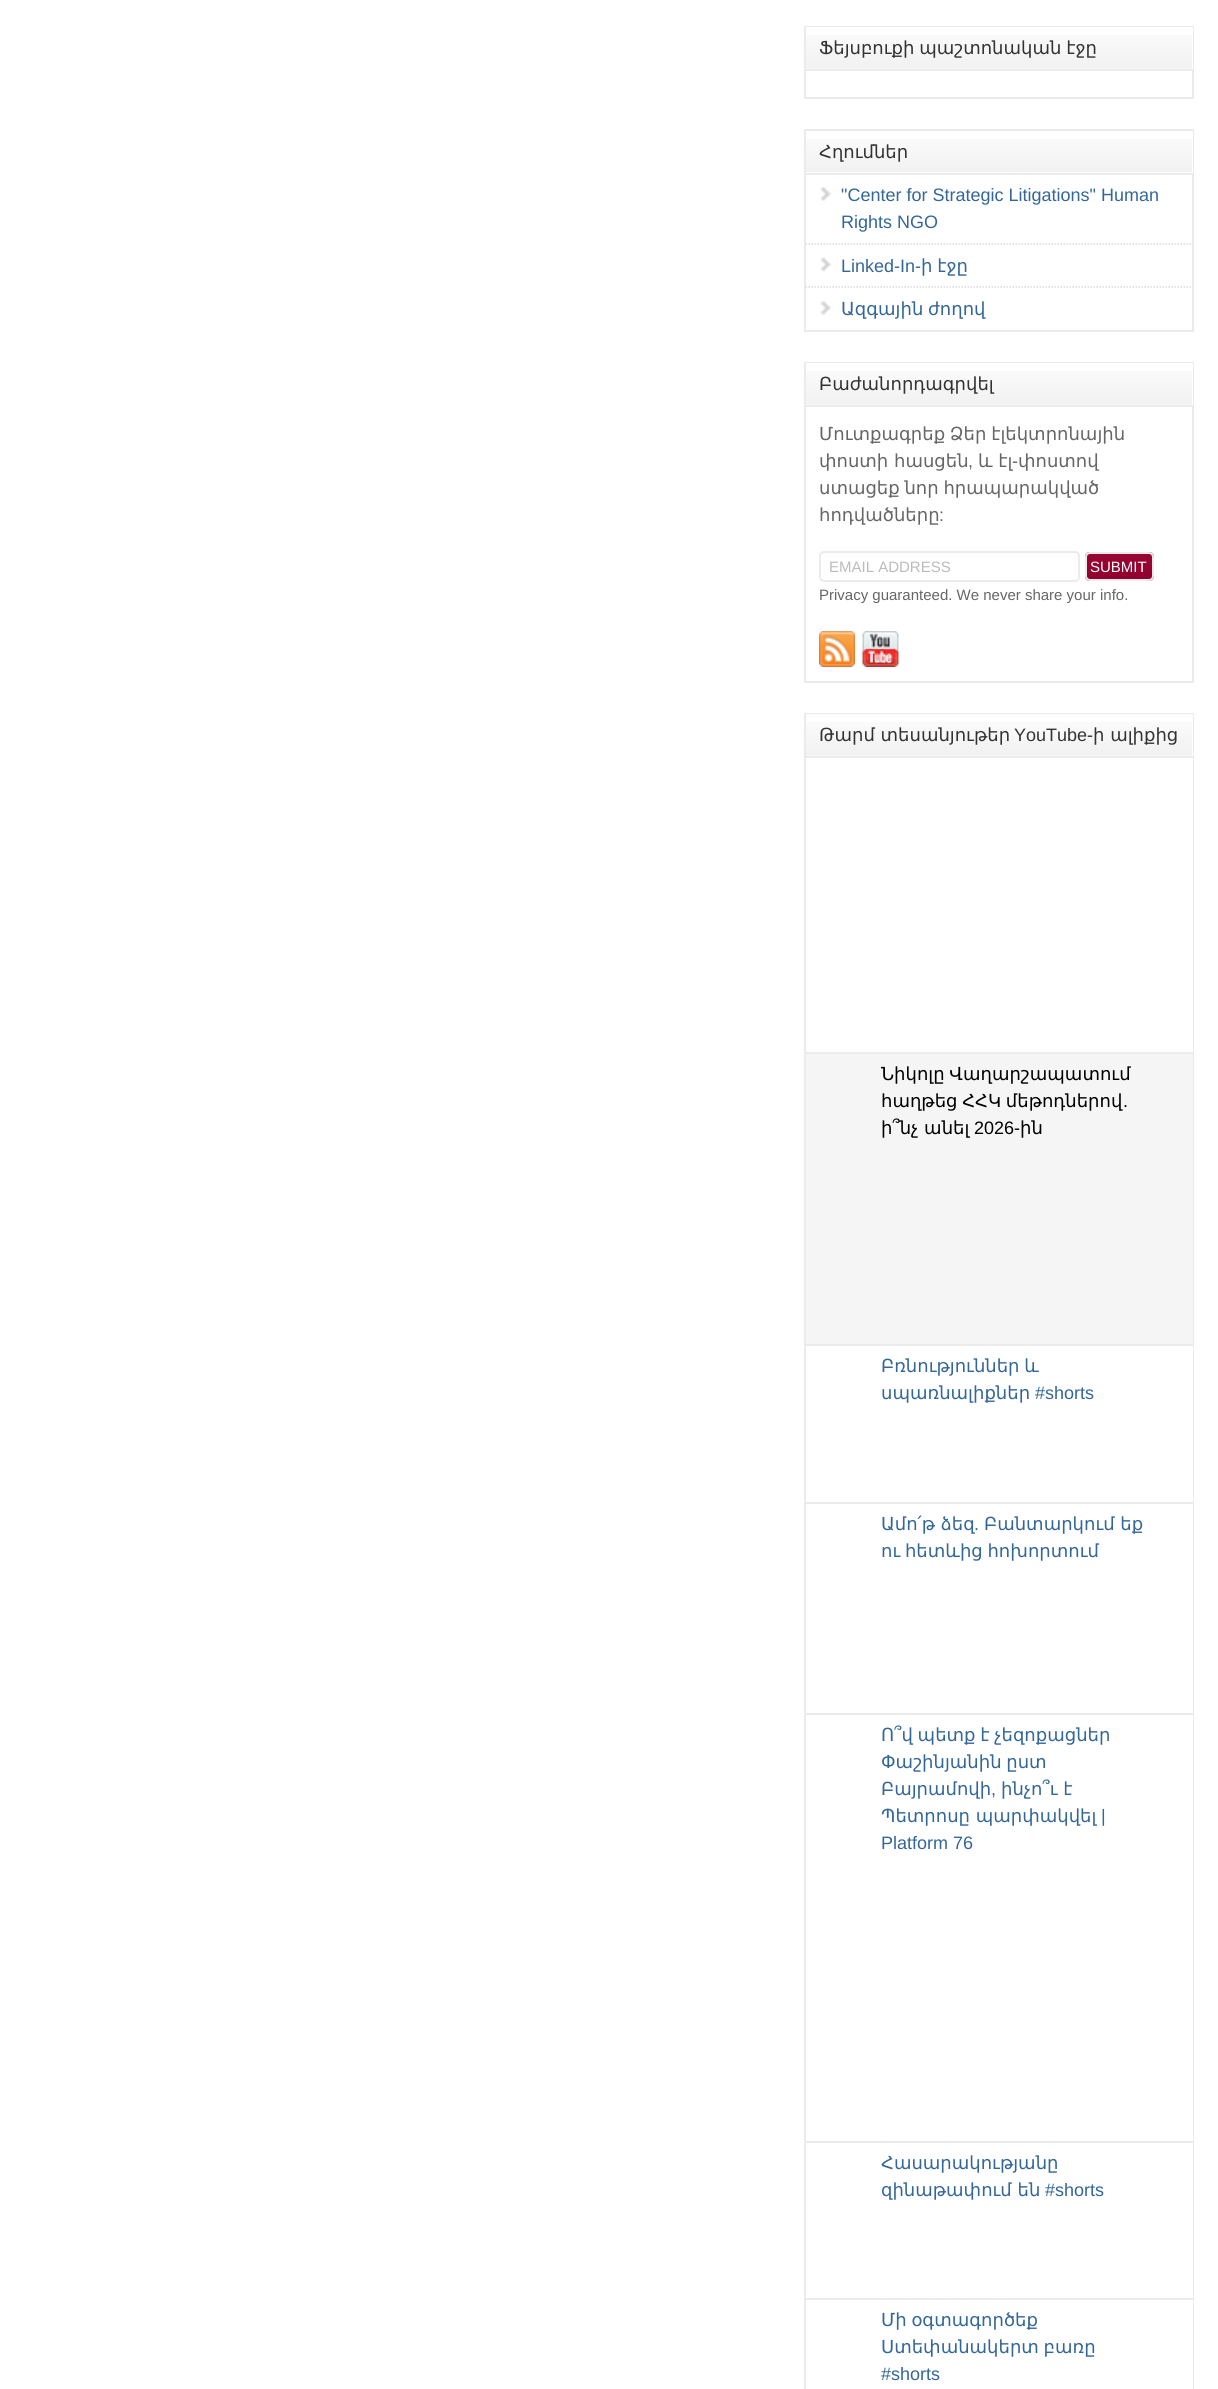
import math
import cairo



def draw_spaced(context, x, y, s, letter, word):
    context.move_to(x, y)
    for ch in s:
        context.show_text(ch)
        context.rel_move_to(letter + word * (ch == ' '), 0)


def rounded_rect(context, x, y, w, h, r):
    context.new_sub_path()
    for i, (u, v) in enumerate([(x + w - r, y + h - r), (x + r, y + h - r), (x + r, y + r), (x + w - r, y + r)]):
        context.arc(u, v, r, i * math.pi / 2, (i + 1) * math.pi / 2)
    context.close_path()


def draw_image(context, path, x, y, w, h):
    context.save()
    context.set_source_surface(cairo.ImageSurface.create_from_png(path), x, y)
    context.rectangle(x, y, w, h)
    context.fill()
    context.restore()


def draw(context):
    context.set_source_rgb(1, 1, 1)
    context.paint()
    context.rectangle(805, 27, 388, 71)
    context.set_source_rgb(235 / 255, 235 / 255, 235 / 255)
    context.stroke()
    context.set_source_rgb(1, 1, 1)
    context.rectangle(806, 27, 387, 42)
    context.fill()
    draw_image(context, "images/1.png", 806, 35, 386, 34)
    context.set_source_rgb(235 / 255, 235 / 255, 235 / 255)
    context.rectangle(806, 69, 387, 2)
    context.fill()
    context.rectangle(805, 130, 388, 201)
    context.stroke()
    context.set_source_rgb(1, 1, 1)
    context.rectangle(1192, 131, 1, 42)
    context.fill()
    draw_image(context, "images/2.png", 806, 139, 386, 33)
    context.set_source_rgb(235 / 255, 235 / 255, 235 / 255)
    context.rectangle(806, 173, 387, 2)
    context.fill()
    draw_image(context, "images/3.png", 820, 187, 11, 14)
    context.new_path()
    context.move_to(805.5, 244)
    context.line_to(1192.5, 244)
    context.set_source_rgb(221 / 255, 221 / 255, 221 / 255)
    context.set_line_width(1.5)
    context.set_dash([1.5, 1.5])
    context.stroke()
    draw_image(context, "images/4.png", 820, 257, 12, 15)
    context.new_path()
    context.move_to(805.5, 287)
    context.line_to(1192.5, 287)
    context.stroke()
    draw_image(context, "images/3.png", 820, 301, 11, 14)
    context.rectangle(805, 363, 388, 319)
    context.set_source_rgb(235 / 255, 235 / 255, 235 / 255)
    context.set_line_width(2)
    context.set_dash([])
    context.stroke()
    context.set_source_rgb(1, 1, 1)
    context.rectangle(806, 363, 387, 42)
    context.fill()
    draw_image(context, "images/5.png", 806, 371, 386, 34)
    context.set_source_rgb(235 / 255, 235 / 255, 235 / 255)
    context.rectangle(806, 405, 387, 2)
    context.fill()
    rounded_rect(context, 820, 552, 259, 29, 4)
    context.stroke()
    context.set_source_rgb(153 / 255, 0, 49 / 255)
    rounded_rect(context, 1085, 552, 69, 29, 5)
    context.fill()
    draw_image(context, "images/6.png", 1085, 552, 68, 27)
    rounded_rect(context, 1086, 553, 67, 27, 4)
    context.set_source_rgb(235 / 255, 235 / 255, 235 / 255)
    context.stroke()
    draw_image(context, "images/7.png", 819, 631, 36, 36)
    draw_image(context, "images/8.png", 862, 631, 37, 36)
    context.rectangle(805, 714, 388, 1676)
    context.stroke()
    context.set_source_rgb(1, 1, 1)
    context.rectangle(806, 714, 387, 42)
    context.fill()
    draw_image(context, "images/9.png", 806, 722, 386, 34)
    context.set_source_rgb(235 / 255, 235 / 255, 235 / 255)
    context.rectangle(806, 756, 387, 2)
    context.fill()
    context.set_source_rgb(1, 1, 1)
    context.rectangle(1192, 758, 1, 294)
    context.fill()
    context.rectangle(1192, 1346, 1, 1043)
    context.fill()
    context.set_source_rgb(245 / 255, 245 / 255, 245 / 255)
    context.rectangle(806, 1054, 387, 290)
    context.fill()
    context.set_source_rgb(235 / 255, 235 / 255, 235 / 255)
    context.rectangle(806, 1052, 387, 2)
    context.fill()
    context.rectangle(806, 1344, 387, 2)
    context.fill()
    context.rectangle(806, 1502, 387, 2)
    context.fill()
    context.rectangle(806, 1713, 387, 2)
    context.fill()
    context.rectangle(806, 2141, 387, 2)
    context.fill()
    context.rectangle(806, 2298, 387, 2)
    context.fill()
    context.select_font_face("DejaVu Sans")
    context.set_font_size(18)
    context.set_source_rgb(51 / 255, 51 / 255, 51 / 255)
    draw_spaced(context, 819, 54, "Ֆեյսբուքի պաշտոնական էջը", 0, -1)
    context.move_to(819, 158)
    context.show_text("Հղումներ")
    context.select_font_face("Liberation Sans")
    context.set_source_rgb(51 / 255, 102 / 255, 153 / 255)
    context.move_to(841, 201)
    context.show_text("\"Center for Strategic Litigations\" Human")
    context.move_to(841, 228)
    context.show_text("Rights NGO")
    context.move_to(841, 272)
    context.show_text("Linked-In-")
    context.select_font_face("DejaVu Sans")
    draw_spaced(context, 921, 272, "ի էջը", 0, -1)
    draw_spaced(context, 841, 315, "Ազգային ժողով", 0, -1)
    context.set_source_rgb(51 / 255, 51 / 255, 51 / 255)
    context.move_to(819, 390)
    context.show_text("Բաժանորդագրվել")
    context.set_source_rgb(102 / 255, 102 / 255, 102 / 255)
    draw_spaced(context, 819, 440, "Մուտքագրեք Ձեր էլեկտրոնային", 0, -1)
    context.move_to(819, 467)
    context.show_text("փոստի հասցեն")
    context.move_to(978, 467)
    context.show_text("և էլ")
    context.select_font_face("Liberation Sans")
    context.move_to(1012, 467)
    context.show_text("-")
    context.select_font_face("DejaVu Sans")
    context.move_to(1018, 467)
    context.show_text("փոստով")
    context.select_font_face("Liberation Sans")
    context.move_to(968, 467)
    context.show_text(",")
    context.select_font_face("DejaVu Sans")
    draw_spaced(context, 819, 494, "ստացեք նոր հրապարակված", 0, -1)
    context.move_to(819, 521)
    context.show_text("հոդվածները")
    context.select_font_face("Liberation Sans")
    context.move_to(939, 521)
    context.show_text(":")
    context.set_font_size(15)
    context.set_source_rgb(187 / 255, 187 / 255, 187 / 255)
    context.move_to(829, 572)
    context.show_text("EMAIL ADDRESS")
    context.set_source_rgb(1, 1, 1)
    context.move_to(1090, 572)
    context.show_text("SUBMIT")
    context.set_source_rgb(102 / 255, 102 / 255, 102 / 255)
    context.move_to(819, 600)
    context.show_text("Privacy guaranteed. We never share your info.")
    context.select_font_face("DejaVu Sans")
    context.set_font_size(18)
    context.set_source_rgb(51 / 255, 51 / 255, 51 / 255)
    context.move_to(819, 741)
    context.show_text("Թարմ տեսանյութեր")
    context.select_font_face("Liberation Sans")
    context.move_to(1014, 741)
    context.show_text("YouTube-")
    context.select_font_face("DejaVu Sans")
    context.move_to(1093, 741)
    context.show_text("ի ալիքից")
    context.set_source_rgb(0, 0, 0)
    draw_spaced(context, 881, 1080, "Նիկոլը Վաղարշապատում", 0, -1)
    draw_spaced(context, 881, 1107, "հաղթեց ՀՀԿ մեթոդներով", 0, -1)
    context.select_font_face("Liberation Sans")
    context.move_to(1123, 1107)
    context.show_text(".")
    context.select_font_face("DejaVu Sans")
    context.move_to(881, 1134)
    context.show_text("ի՞նչ անել")
    context.select_font_face("Liberation Sans")
    context.move_to(974, 1134)
    context.show_text("2026-")
    context.select_font_face("DejaVu Sans")
    context.move_to(1020, 1134)
    context.show_text("ին")
    context.set_source_rgb(51 / 255, 102 / 255, 153 / 255)
    draw_spaced(context, 881, 1372, "Բռնություններ և", 0, -1)
    context.move_to(881, 1399)
    context.show_text("սպառնալիքներ")
    context.select_font_face("Liberation Sans")
    context.move_to(1035, 1399)
    context.show_text("#shorts")
    context.select_font_face("DejaVu Sans")
    context.move_to(881, 1530)
    context.show_text("Ամո՛թ ձեզ")
    context.select_font_face("Liberation Sans")
    context.move_to(974, 1530)
    context.show_text(".")
    context.select_font_face("DejaVu Sans")
    context.move_to(984, 1530)
    context.show_text("Բանտարկում եք")
    draw_spaced(context, 881, 1557, "ու հետևից հոխորտում", 0, -1)
    draw_spaced(context, 881, 1741, "Ո՞վ պետք է չեզոքացներ", 0, -1)
    draw_spaced(context, 881, 1768, "Փաշինյանին ըստ", 0, -1)
    context.move_to(881, 1795)
    context.show_text("Բայրամովի")
    context.select_font_face("Liberation Sans")
    context.move_to(991, 1795)
    context.show_text(",")
    context.select_font_face("DejaVu Sans")
    context.move_to(1001, 1795)
    context.show_text("ինչո՞ւ է")
    context.move_to(881, 1822)
    context.show_text("Պետրոսը պարփակվել")
    context.select_font_face("Liberation Sans")
    context.move_to(1101, 1822)
    context.show_text("|")
    context.move_to(881, 1849)
    context.show_text("Platform 76")
    context.select_font_face("DejaVu Sans")
    context.move_to(881, 2169)
    context.show_text("Հասարակությանը")
    context.move_to(881, 2196)
    context.show_text("զինաթափում են")
    context.select_font_face("Liberation Sans")
    context.move_to(1045, 2196)
    context.show_text("#shorts")
    context.select_font_face("DejaVu Sans")
    draw_spaced(context, 881, 2326, "Մի օգտագործեք", 0, -1)
    draw_spaced(context, 881, 2353, "Ստեփանակերտ բառը", 0, -1)
    context.select_font_face("Liberation Sans")
    context.move_to(881, 2380)
    context.show_text("#shorts")


surface = cairo.ImageSurface(cairo.Format.RGB24, 1218, 2389)
context = cairo.Context(surface)
options = cairo.FontOptions()
options.set_hint_metrics(cairo.HintMetrics.OFF)
options.set_hint_style(cairo.HintStyle.NONE)
context.set_font_options(options)
context.set_miter_limit(4)
draw(context)
surface.write_to_png("out.png")
